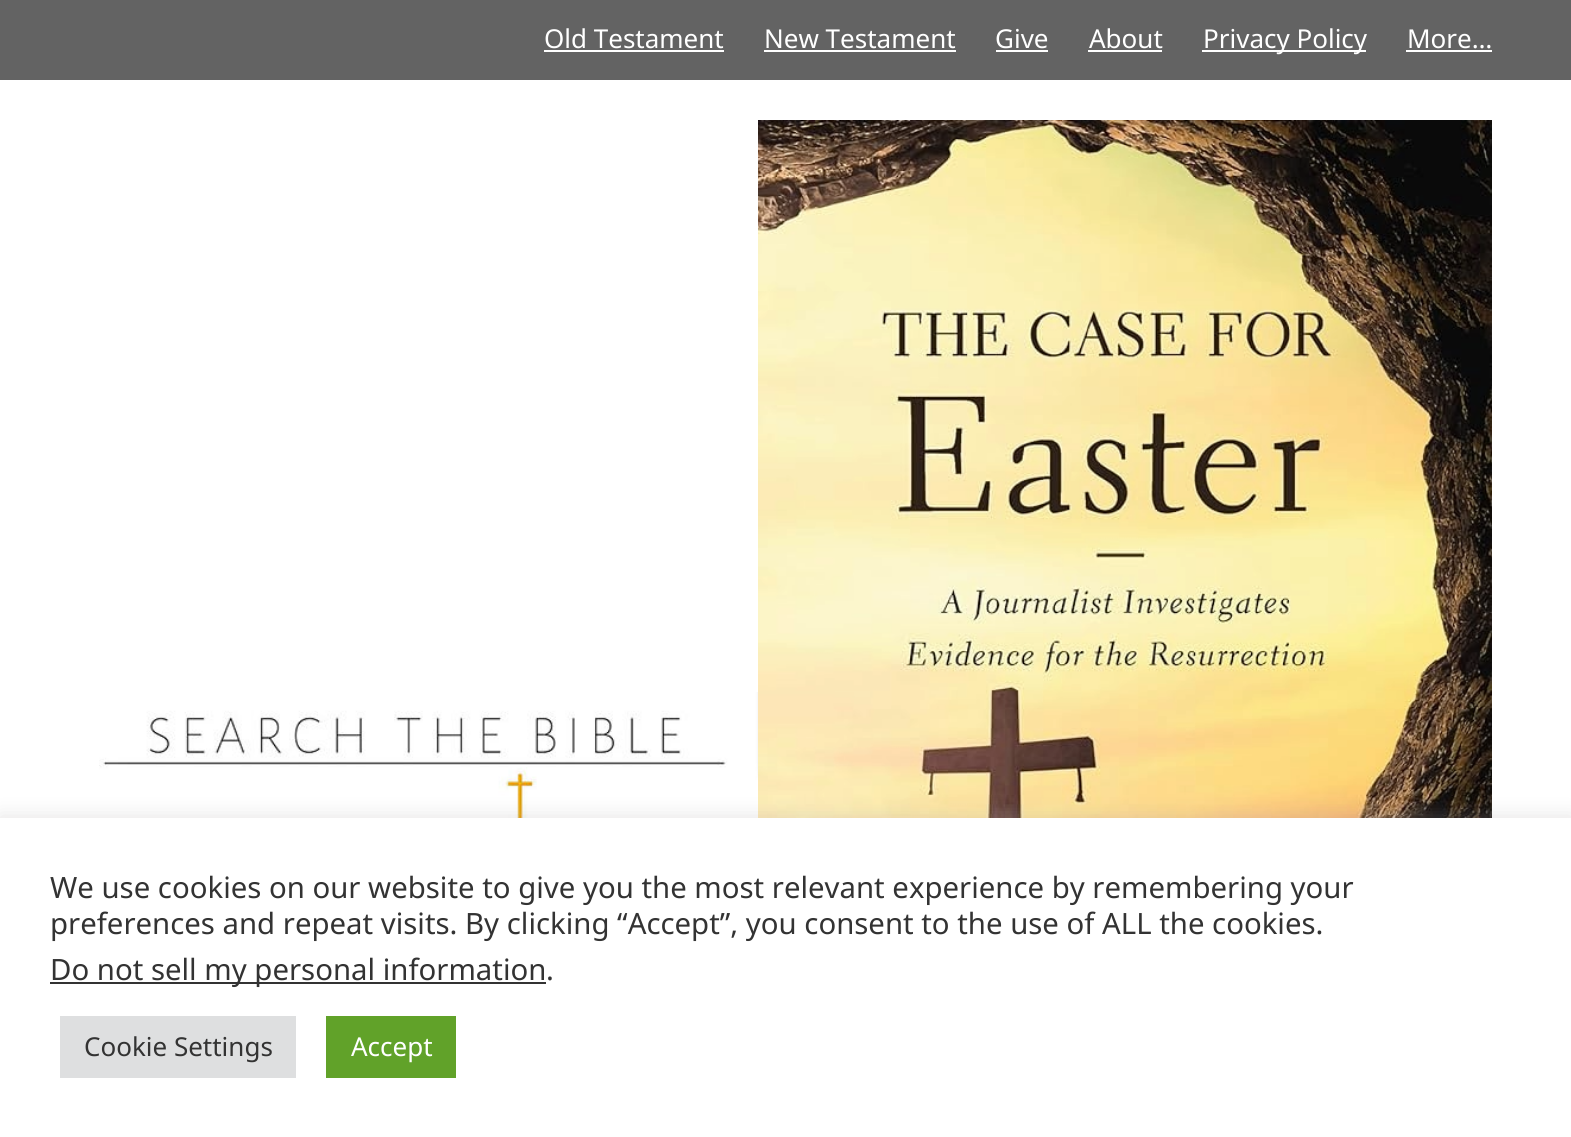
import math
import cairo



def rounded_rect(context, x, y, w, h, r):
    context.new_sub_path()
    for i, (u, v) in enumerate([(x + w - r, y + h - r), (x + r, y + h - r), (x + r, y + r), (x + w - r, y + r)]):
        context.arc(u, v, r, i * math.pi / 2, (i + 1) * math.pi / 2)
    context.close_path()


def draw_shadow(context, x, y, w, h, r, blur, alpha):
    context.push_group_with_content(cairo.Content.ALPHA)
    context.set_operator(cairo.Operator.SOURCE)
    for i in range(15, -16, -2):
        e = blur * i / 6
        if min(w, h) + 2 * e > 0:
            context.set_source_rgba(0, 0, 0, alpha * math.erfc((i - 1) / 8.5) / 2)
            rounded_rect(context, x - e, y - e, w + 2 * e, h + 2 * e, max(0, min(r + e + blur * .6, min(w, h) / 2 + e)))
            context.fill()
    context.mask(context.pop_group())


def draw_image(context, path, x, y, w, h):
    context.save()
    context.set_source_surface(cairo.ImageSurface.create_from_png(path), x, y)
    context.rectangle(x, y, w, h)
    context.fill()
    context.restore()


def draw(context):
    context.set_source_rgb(99 / 255, 99 / 255, 99 / 255)
    context.paint()
    context.set_source_rgb(1, 1, 1)
    context.rectangle(544, 50, 180, 2)
    context.fill()
    context.rectangle(764, 50, 192, 2)
    context.fill()
    context.rectangle(996, 50, 52, 2)
    context.fill()
    context.rectangle(1088, 50, 74, 2)
    context.fill()
    context.rectangle(1202, 50, 164, 2)
    context.fill()
    context.rectangle(1406, 50, 86, 2)
    context.fill()
    context.rectangle(0, 80, 1571, 738)
    context.fill()
    draw_image(context, "images/1.png", 99, 692, 659, 126)
    draw_image(context, "images/2.png", 758, 120, 734, 698)
    context.set_source_rgb(172 / 255, 171 / 255, 171 / 255)
    draw_shadow(context, 0, 816, 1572, 320, 0, 10, 0.3)
    context.set_source_rgb(1, 1, 1)
    context.rectangle(0, 818, 1571, 319)
    context.fill()
    context.set_source_rgb(51 / 255, 51 / 255, 51 / 255)
    context.rectangle(50, 982, 496, 2)
    context.fill()
    context.set_source_rgb(222 / 255, 223 / 255, 224 / 255)
    context.rectangle(60, 1016, 236, 62)
    context.fill()
    context.set_source_rgb(97 / 255, 162 / 255, 41 / 255)
    context.rectangle(326, 1016, 130, 62)
    context.fill()
    context.select_font_face("Noto Sans")
    context.set_font_size(26)
    context.set_source_rgb(1, 1, 1)
    context.move_to(544, 48)
    context.show_text("Old Testament")
    context.move_to(764, 48)
    context.show_text("New Testament")
    context.move_to(995, 48)
    context.show_text("Give")
    context.move_to(1089, 48)
    context.show_text("About")
    context.move_to(1203, 48)
    context.show_text("Privacy Policy")
    context.move_to(1407, 48)
    context.show_text("More…")
    context.set_font_size(29.35)
    context.set_source_rgb(51 / 255, 51 / 255, 51 / 255)
    context.move_to(50, 898)
    context.show_text("We use cookies on our website to give you the most relevant experience by remembering your")
    context.move_to(50, 934)
    context.show_text("preferences and repeat visits. By clicking “Accept”, you consent to the use of ALL the cookies.")
    context.move_to(50, 980)
    context.show_text("Do not sell my personal information")
    context.move_to(546, 980)
    context.show_text(".")
    context.set_font_size(26)
    context.move_to(84, 1056)
    context.show_text("Cookie Settings")
    context.set_source_rgb(1, 1, 1)
    context.move_to(351, 1056)
    context.show_text("Accept")


surface = cairo.ImageSurface(cairo.Format.RGB24, 1571, 1137)
context = cairo.Context(surface)
options = cairo.FontOptions()
options.set_hint_metrics(cairo.HintMetrics.OFF)
options.set_hint_style(cairo.HintStyle.NONE)
context.set_font_options(options)
context.set_miter_limit(4)
draw(context)
surface.write_to_png("out.png")
